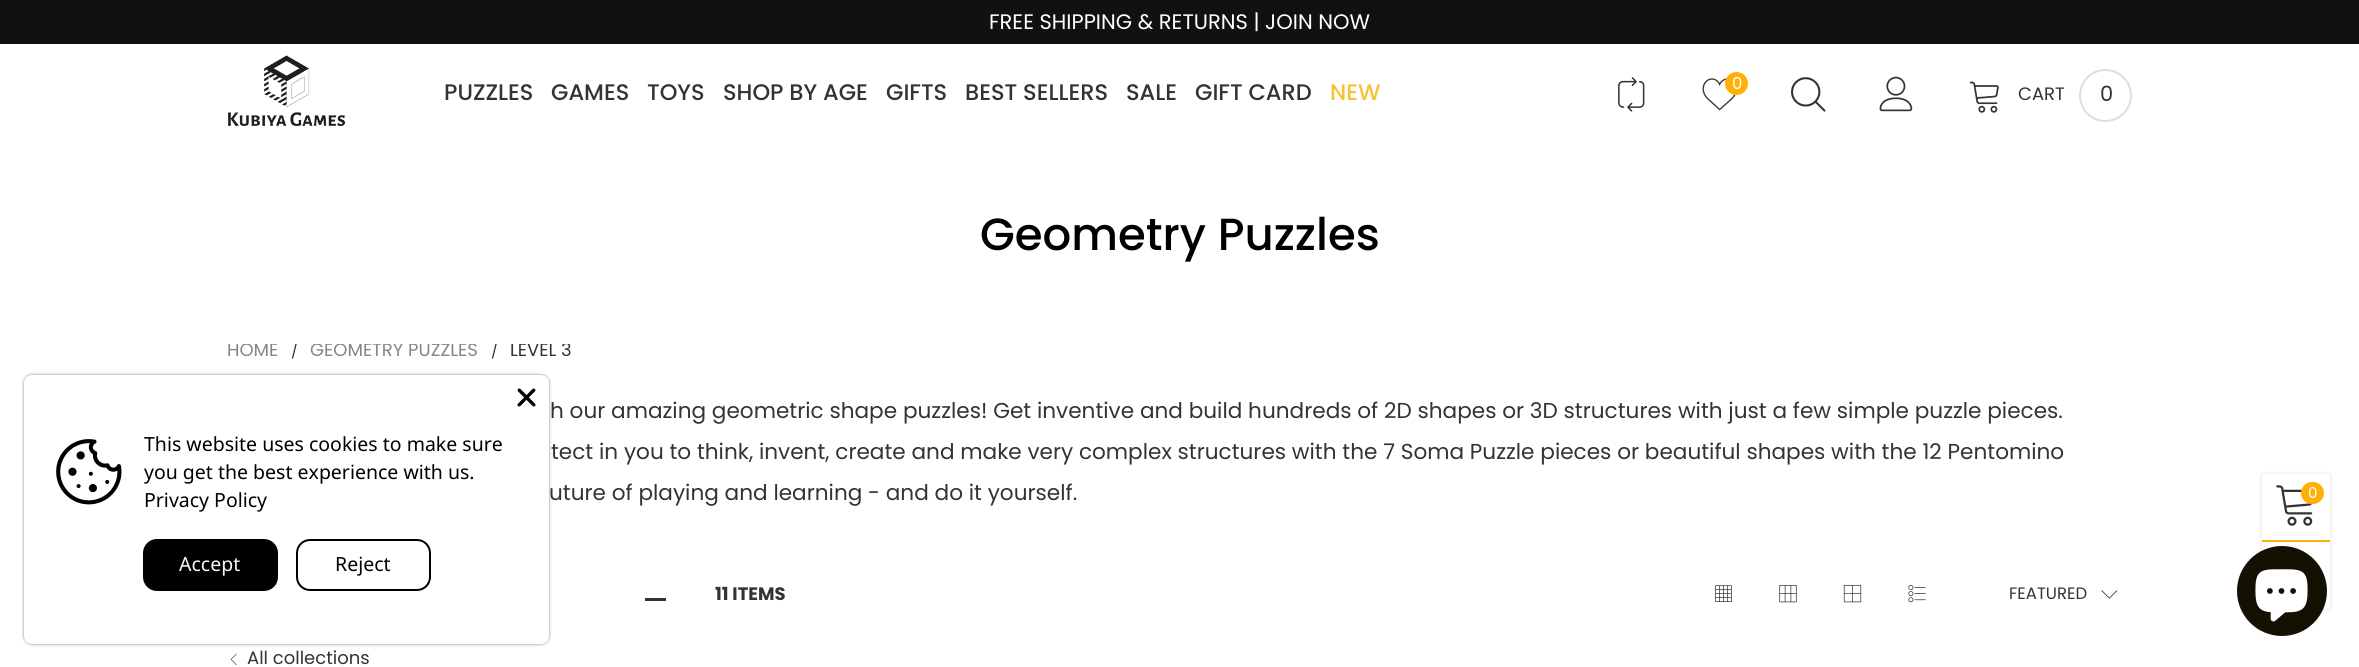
import math
import cairo



def rounded_rect(context, x, y, w, h, r):
    context.new_sub_path()
    for i, (u, v) in enumerate([(x + w - r, y + h - r), (x + r, y + h - r), (x + r, y + r), (x + w - r, y + r)]):
        context.arc(u, v, r, i * math.pi / 2, (i + 1) * math.pi / 2)
    context.close_path()


def draw_shadow(context, x, y, w, h, r, blur, alpha):
    context.push_group_with_content(cairo.Content.ALPHA)
    context.set_operator(cairo.Operator.SOURCE)
    for i in range(15, -16, -2):
        e = blur * i / 6
        if min(w, h) + 2 * e > 0:
            context.set_source_rgba(0, 0, 0, alpha * math.erfc((i - 1) / 8.5) / 2)
            rounded_rect(context, x - e, y - e, w + 2 * e, h + 2 * e, max(0, min(r + e + blur * .6, min(w, h) / 2 + e)))
            context.fill()
    context.mask(context.pop_group())


def draw_image(context, path, x, y, w, h):
    context.save()
    context.set_source_surface(cairo.ImageSurface.create_from_png(path), x, y)
    context.rectangle(x, y, w, h)
    context.fill()
    context.restore()


def draw(context):
    context.set_source_rgb(1, 1, 1)
    context.paint()
    context.set_source_rgb(17 / 255, 17 / 255, 17 / 255)
    context.rectangle(0, 0, 2359, 44)
    context.fill()
    draw_image(context, "images/1.png", 228, 55, 117, 71)
    draw_image(context, "images/2.png", 1618, 77, 27, 35)
    draw_image(context, "images/3.png", 1702, 78, 34, 33)
    context.set_source_rgb(1, 175 / 255, 6 / 255)
    context.arc(1736.5, 83.5, 11.5, 0, 2 * math.pi)
    context.fill()
    draw_image(context, "images/4.png", 1791, 77, 35, 35)
    draw_image(context, "images/5.png", 1879, 76, 34, 36)
    draw_image(context, "images/6.png", 1969, 81, 30, 32)
    context.arc(2105.5, 95.5, 25.5, 0, 2 * math.pi)
    context.set_source_rgb(222 / 255, 222 / 255, 222 / 255)
    context.stroke()
    draw_image(context, "images/7.png", 1715, 585, 17, 17)
    draw_image(context, "images/8.png", 1779, 584, 18, 19)
    draw_image(context, "images/9.png", 1843, 584, 19, 19)
    draw_image(context, "images/10.png", 1908, 585, 18, 18)
    draw_image(context, "images/11.png", 2101, 590, 17, 9)
    context.set_source_rgb(51 / 255, 51 / 255, 51 / 255)
    context.rectangle(645, 598, 21, 3)
    context.fill()
    draw_image(context, "images/12.png", 230, 653, 7, 13)
    context.set_source_rgb(0, 0, 0)
    draw_shadow(context, 24, 375, 525, 269, 8, 1.5, 0.5)
    context.set_source_rgb(1, 1, 1)
    rounded_rect(context, 24, 375, 525, 269, 8)
    context.fill()
    draw_image(context, "images/13.png", 517, 388, 19, 19)
    draw_image(context, "images/14.png", 56, 439, 66, 66)
    context.set_source_rgb(0, 0, 0)
    rounded_rect(context, 143, 539, 135, 52, 14)
    context.fill()
    rounded_rect(context, 297, 540, 133, 50, 13)
    context.stroke()
    context.set_source_rgb(51 / 255, 51 / 255, 51 / 255)
    draw_shadow(context, 2262, 474, 68, 135, 0, 2, 0.15)
    context.set_source_rgb(1, 1, 1)
    context.rectangle(2262, 474, 68, 135)
    context.fill()
    context.set_source_rgb(1, 175 / 255, 6 / 255)
    context.rectangle(2262, 540, 68, 2)
    context.fill()
    draw_image(context, "images/15.png", 2276, 485, 37, 41)
    rounded_rect(context, 2301, 482, 23, 22, 11)
    context.fill()
    context.set_source_rgb(21 / 255, 17 / 255, 2 / 255)
    context.arc(2282, 591, 45, 0, 2 * math.pi)
    context.fill()
    draw_image(context, "images/16.png", 2255, 569, 53, 53)
    context.select_font_face("Poppins")
    context.set_font_size(21)
    context.set_source_rgb(1, 1, 1)
    context.move_to(989, 29)
    context.show_text("FREE SHIPPING & RETURNS | JOIN NOW")
    context.select_font_face("Poppins Medium")
    context.set_font_size(22.5)
    context.set_source_rgb(51 / 255, 51 / 255, 51 / 255)
    context.move_to(444, 100)
    context.show_text("PUZZLES")
    context.move_to(551, 100)
    context.show_text("GAMES")
    context.move_to(647, 100)
    context.show_text("TOYS")
    context.move_to(723, 100)
    context.show_text("SHOP BY AGE")
    context.move_to(886, 100)
    context.show_text("GIFTS")
    context.move_to(965, 100)
    context.show_text("BEST SELLERS")
    context.move_to(1126, 100)
    context.show_text("SALE")
    context.move_to(1195, 100)
    context.show_text("GIFT CARD")
    context.set_source_rgb(247 / 255, 193 / 255, 56 / 255)
    context.move_to(1330, 100)
    context.show_text("NEW")
    context.select_font_face("Poppins")
    context.set_font_size(16.5)
    context.set_source_rgb(1, 1, 1)
    context.move_to(1732, 89)
    context.show_text("0")
    context.set_font_size(18)
    context.set_source_rgb(51 / 255, 51 / 255, 51 / 255)
    context.move_to(2018, 100)
    context.show_text("CART")
    context.set_font_size(21)
    context.move_to(2100, 101)
    context.show_text("0")
    context.select_font_face("Poppins Medium")
    context.set_font_size(45)
    context.set_source_rgb(0, 0, 0)
    context.move_to(980, 250)
    context.show_text("Geometry Puzzles")
    context.save()
    context.rectangle(228, 344, 344, 16)
    context.clip()
    context.select_font_face("Poppins")
    context.set_font_size(18)
    context.set_source_rgb(133 / 255, 133 / 255, 133 / 255)
    context.move_to(227, 356)
    context.show_text("HOME")
    context.set_font_size(15)
    context.set_source_rgb(51 / 255, 51 / 255, 51 / 255)
    context.move_to(291, 356)
    context.show_text("/")
    context.set_font_size(18)
    context.set_source_rgb(133 / 255, 133 / 255, 133 / 255)
    context.move_to(310, 356)
    context.show_text("GEOMETRY PUZZLES")
    context.set_font_size(15)
    context.set_source_rgb(51 / 255, 51 / 255, 51 / 255)
    context.move_to(491, 356)
    context.show_text("/")
    context.set_font_size(18)
    context.move_to(510, 356)
    context.show_text("LEVEL 3")
    context.restore()
    context.select_font_face("Poppins")
    context.set_font_size(21.6)
    context.set_source_rgb(51 / 255, 51 / 255, 51 / 255)
    context.move_to(550, 418)
    context.show_text("h our amazing geometric shape puzzles! Get inventive and build hundreds of 2D shapes or 3D structures with just a few simple puzzle pieces.")
    context.move_to(551, 459)
    context.show_text("tect in you to think, invent, create and make very complex structures with the 7 Soma Puzzle pieces or beautiful shapes with the 12 Pentomino")
    context.move_to(549, 500)
    context.show_text("uture of playing and learning - and do it yourself.")
    context.select_font_face("Poppins", cairo.FontSlant.NORMAL, cairo.FontWeight.BOLD)
    context.set_font_size(18)
    context.move_to(715, 600)
    context.show_text("11 ITEMS")
    context.select_font_face("Poppins")
    context.set_font_size(16.5)
    context.move_to(2009, 599)
    context.show_text("FEATURED")
    context.set_font_size(18)
    context.move_to(247, 664)
    context.show_text("All collections")
    context.select_font_face("Noto Sans")
    context.set_font_size(19.5)
    context.set_source_rgb(0, 0, 0)
    context.move_to(144, 451)
    context.show_text("This website uses cookies to make sure")
    context.move_to(144, 479)
    context.show_text("you get the best experience with us.")
    context.move_to(144, 507)
    context.show_text("Privacy Policy")
    context.set_source_rgb(248 / 255, 248 / 255, 248 / 255)
    context.move_to(179, 571)
    context.show_text("Accept")
    context.set_source_rgb(0, 0, 0)
    context.move_to(335, 571)
    context.show_text("Reject")
    context.select_font_face("Poppins")
    context.set_font_size(15)
    context.set_source_rgb(1, 1, 1)
    context.move_to(2308, 498)
    context.show_text("0")


surface = cairo.ImageSurface(cairo.Format.RGB24, 2359, 667)
context = cairo.Context(surface)
options = cairo.FontOptions()
options.set_hint_metrics(cairo.HintMetrics.OFF)
options.set_hint_style(cairo.HintStyle.NONE)
context.set_font_options(options)
context.set_miter_limit(4)
draw(context)
surface.write_to_png("out.png")
